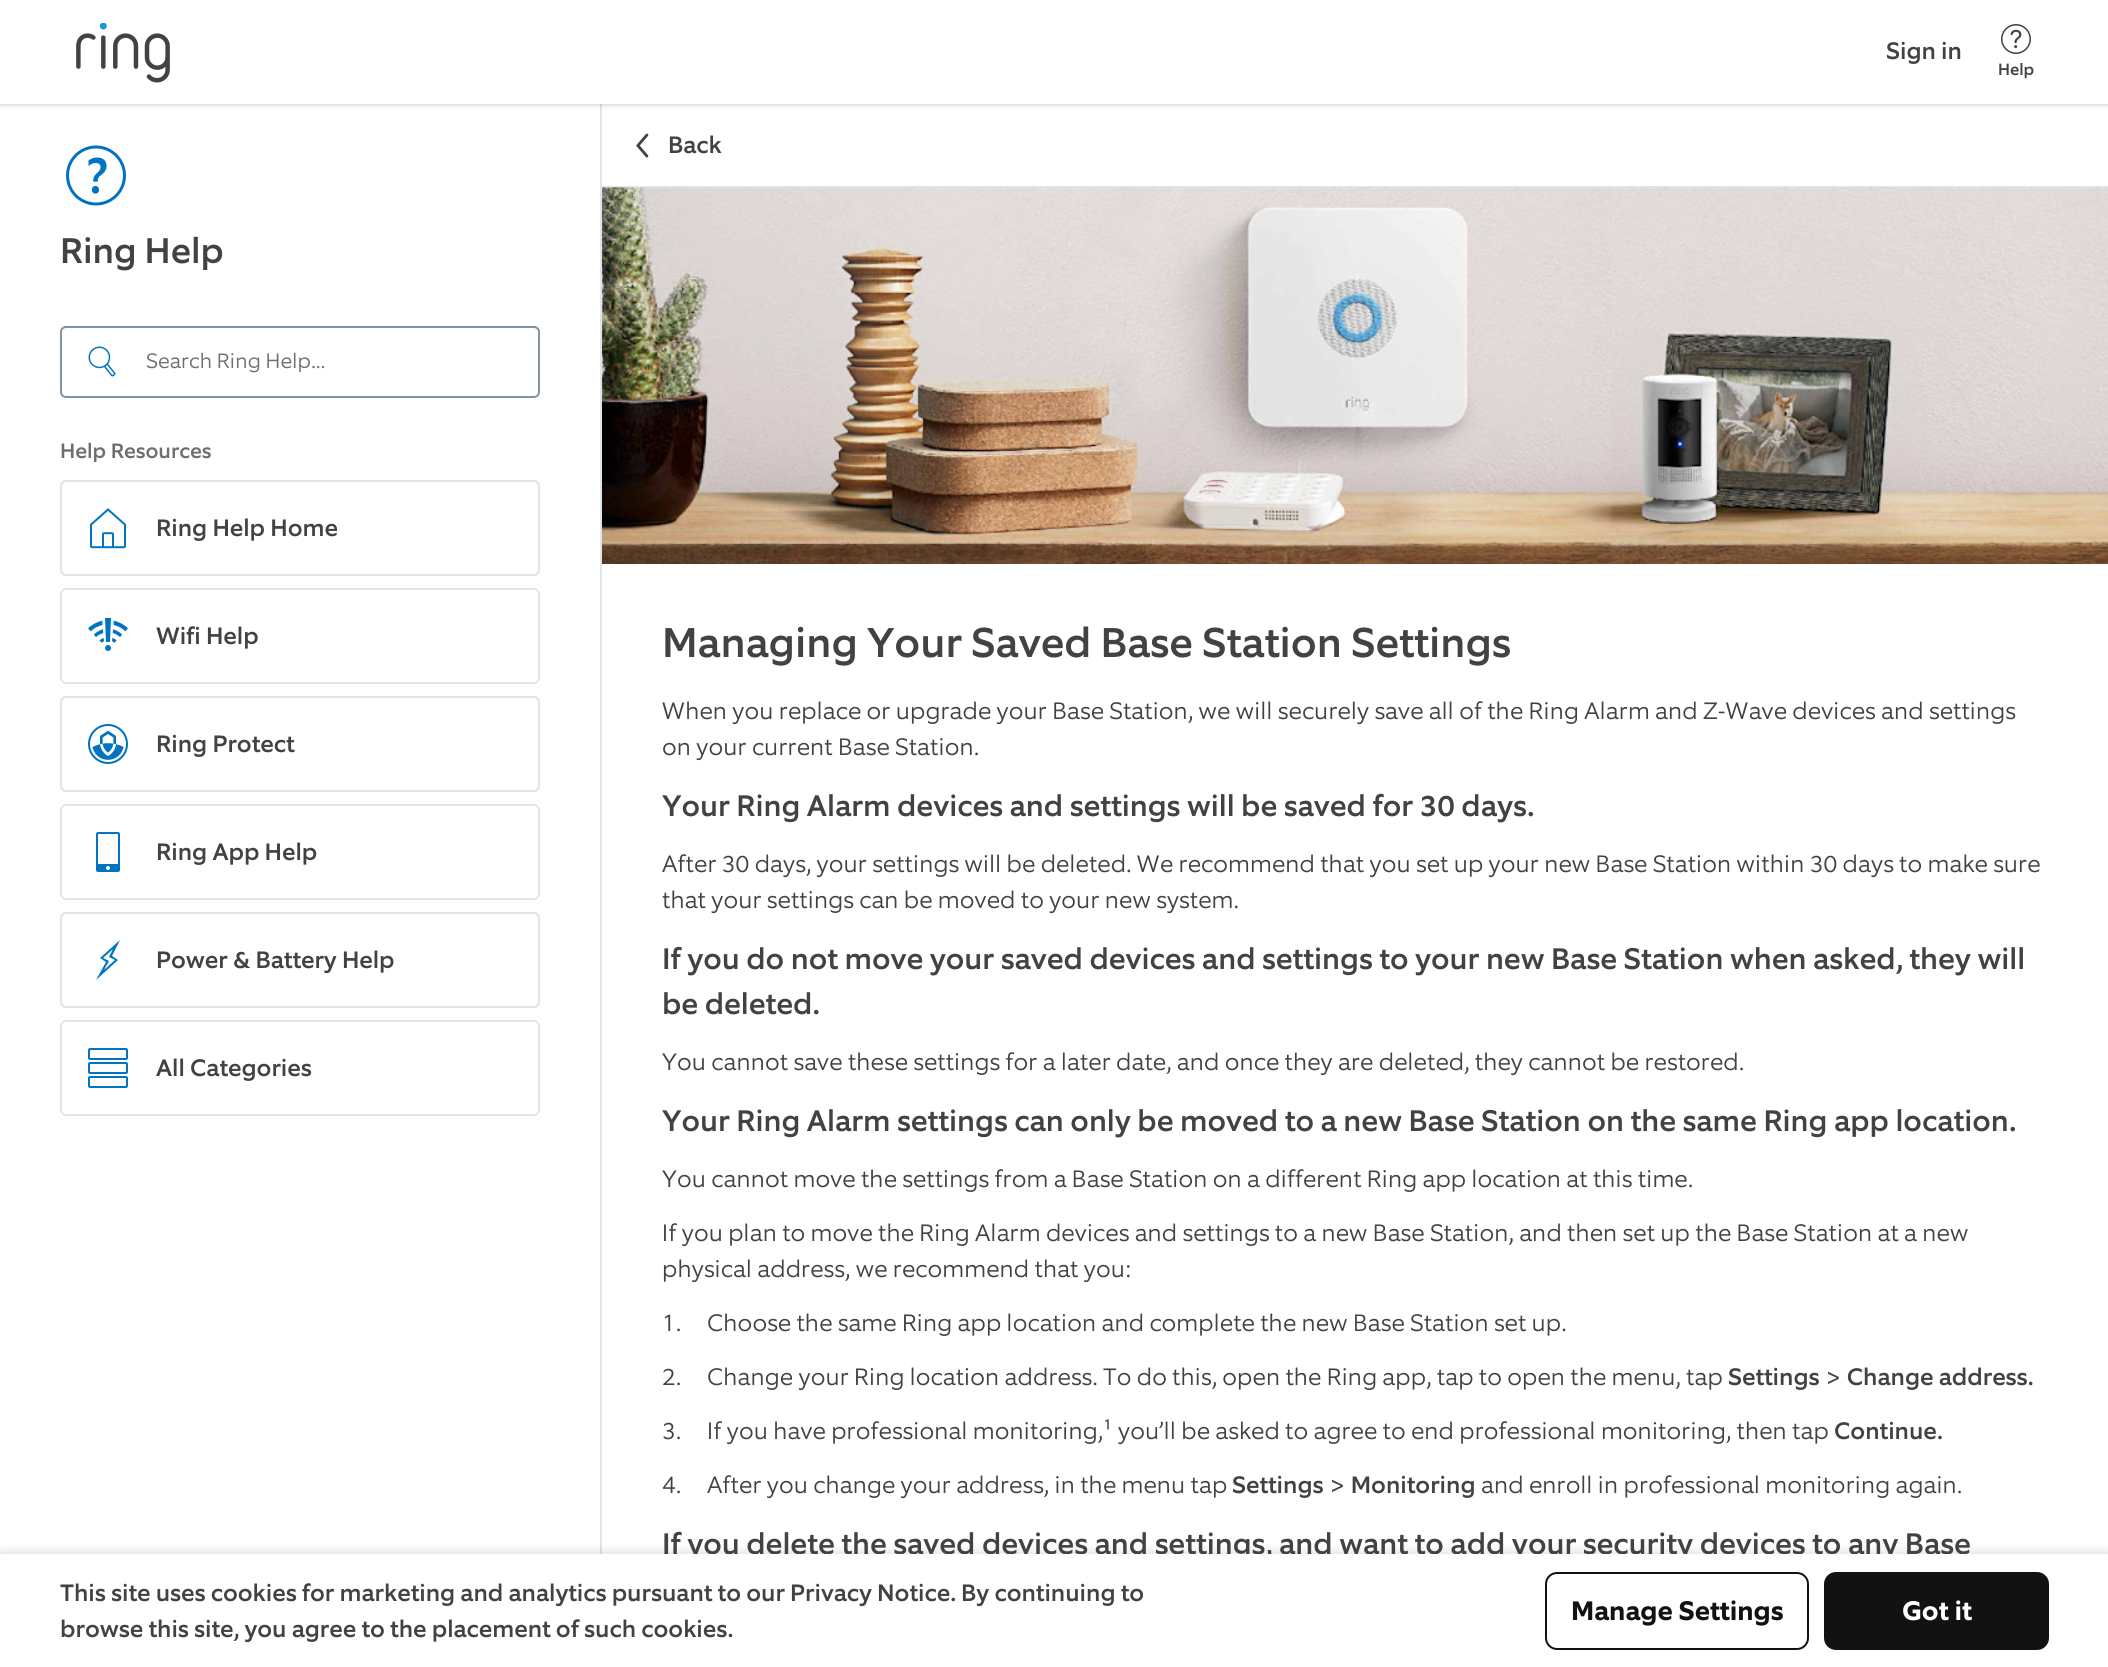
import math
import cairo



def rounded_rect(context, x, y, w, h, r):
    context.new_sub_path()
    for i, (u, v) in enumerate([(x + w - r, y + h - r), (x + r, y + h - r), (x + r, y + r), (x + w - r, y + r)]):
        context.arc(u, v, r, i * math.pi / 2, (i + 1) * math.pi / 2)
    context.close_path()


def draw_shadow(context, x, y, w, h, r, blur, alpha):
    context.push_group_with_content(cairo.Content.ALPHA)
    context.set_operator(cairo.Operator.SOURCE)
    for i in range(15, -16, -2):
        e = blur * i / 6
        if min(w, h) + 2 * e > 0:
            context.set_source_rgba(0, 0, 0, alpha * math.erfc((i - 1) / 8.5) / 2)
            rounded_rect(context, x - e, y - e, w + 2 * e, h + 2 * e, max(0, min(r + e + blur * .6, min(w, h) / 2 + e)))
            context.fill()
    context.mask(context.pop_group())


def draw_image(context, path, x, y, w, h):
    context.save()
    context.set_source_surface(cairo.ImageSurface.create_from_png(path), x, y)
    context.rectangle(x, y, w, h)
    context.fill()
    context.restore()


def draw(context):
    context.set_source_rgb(1, 1, 1)
    context.paint()
    context.set_source_rgb(222 / 255, 229 / 255, 236 / 255)
    context.rectangle(600, 104, 2, 1450)
    context.fill()
    context.set_source_rgb(0, 0, 0)
    draw_shadow(context, 0, 2, 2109, 102, 0, 3, 0.25)
    context.set_source_rgb(1, 1, 1)
    context.rectangle(0, 0, 2108, 104)
    context.fill()
    draw_image(context, "images/1.png", 76, 23, 94, 60)
    draw_image(context, "images/2.png", 2001, 24, 30, 30)
    draw_image(context, "images/3.png", 66, 145, 60, 61)
    rounded_rect(context, 61, 327, 478, 70, 5)
    context.set_source_rgb(129 / 255, 145 / 255, 159 / 255)
    context.stroke()
    draw_image(context, "images/4.png", 88, 346, 28, 31)
    rounded_rect(context, 61, 481, 478, 94, 5)
    context.set_source_rgb(222 / 255, 229 / 255, 236 / 255)
    context.stroke()
    draw_image(context, "images/5.png", 90, 508, 36, 41)
    rounded_rect(context, 61, 589, 478, 94, 5)
    context.stroke()
    draw_image(context, "images/6.png", 88, 618, 40, 33)
    rounded_rect(context, 61, 697, 478, 94, 5)
    context.stroke()
    draw_image(context, "images/7.png", 88, 724, 40, 40)
    rounded_rect(context, 61, 805, 478, 94, 5)
    context.stroke()
    draw_image(context, "images/8.png", 96, 832, 24, 40)
    rounded_rect(context, 61, 913, 478, 94, 5)
    context.stroke()
    context.set_source_rgb(0, 116 / 255, 194 / 255)
    context.set_fill_rule(cairo.FillRule.EVEN_ODD)
    context.new_path()
    context.move_to(113, 949)
    context.line_to(109, 957)
    context.line_to(115, 960)
    context.line_to(104, 970)
    context.line_to(109, 961)
    context.line_to(103, 958)
    context.close_path()
    context.move_to(120, 940)
    context.line_to(100, 958)
    context.line_to(106, 962)
    context.line_to(96, 980)
    context.line_to(118, 960)
    context.line_to(112, 956)
    context.close_path()
    context.fill()
    rounded_rect(context, 61, 1021, 478, 94, 5)
    context.set_source_rgb(222 / 255, 229 / 255, 236 / 255)
    context.stroke()
    draw_image(context, "images/9.png", 88, 1048, 40, 40)
    context.rectangle(602, 186, 1506, 2)
    context.fill()
    draw_image(context, "images/10.png", 636, 133, 13, 25)
    draw_image(context, "images/11.png", 602, 187, 1506, 377)
    context.set_source_rgb(0, 0, 0)
    draw_shadow(context, 0, 1553, 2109, 114, 0, 6, 0.15)
    context.select_font_face("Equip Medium")
    context.set_font_size(24)
    context.set_source_rgb(66 / 255, 66 / 255, 66 / 255)
    context.move_to(1886, 59)
    context.show_text("Sign in")
    context.set_font_size(16.5)
    context.move_to(1998, 75)
    context.show_text("Help")
    context.set_font_size(36)
    context.move_to(60, 263)
    context.show_text("Ring Help")
    context.select_font_face("Equip Light")
    context.set_font_size(21)
    context.set_source_rgb(110 / 255, 110 / 255, 110 / 255)
    context.move_to(146, 368)
    context.show_text("Search Ring Help...")
    context.select_font_face("Equip Medium")
    context.move_to(60, 458)
    context.show_text("Help Resources")
    context.set_font_size(24)
    context.set_source_rgb(66 / 255, 66 / 255, 66 / 255)
    context.move_to(156, 536)
    context.show_text("Ring Help Home")
    context.move_to(156, 644)
    context.show_text("Wifi Help")
    context.move_to(156, 752)
    context.show_text("Ring Protect")
    context.move_to(156, 860)
    context.show_text("Ring App Help")
    context.move_to(156, 968)
    context.show_text("Power & Battery Help")
    context.move_to(156, 1076)
    context.show_text("All Categories")
    context.move_to(668, 153)
    context.show_text("Back")
    context.set_font_size(42)
    context.move_to(662, 657)
    context.show_text("Managing Your Saved Base Station Settings")
    context.select_font_face("Equip Light")
    context.set_font_size(24)
    context.move_to(662, 719)
    context.show_text("When you replace or upgrade your Base Station, we will securely save all of the Ring Alarm and Z-Wave devices and settings")
    context.move_to(662, 755)
    context.show_text("on your current Base Station.")
    context.select_font_face("Equip Medium")
    context.set_font_size(30)
    context.move_to(662, 816)
    context.show_text("Your Ring Alarm devices and settings will be saved for 30 days.")
    context.select_font_face("Equip Light")
    context.set_font_size(24)
    context.move_to(662, 872)
    context.show_text("After 30 days, your settings will be deleted. We recommend that you set up your new Base Station within 30 days to make sure")
    context.move_to(662, 908)
    context.show_text("that your settings can be moved to your new system.")
    context.select_font_face("Equip Medium")
    context.set_font_size(30)
    context.move_to(662, 969)
    context.show_text("If you do not move your saved devices and settings to your new Base Station when asked, they will")
    context.move_to(662, 1014)
    context.show_text("be deleted.")
    context.select_font_face("Equip Light")
    context.set_font_size(24)
    context.move_to(662, 1070)
    context.show_text("You cannot save these settings for a later date, and once they are deleted, they cannot be restored.")
    context.select_font_face("Equip Medium")
    context.set_font_size(30)
    context.move_to(662, 1131)
    context.show_text("Your Ring Alarm settings can only be moved to a new Base Station on the same Ring app location.")
    context.select_font_face("Equip Light")
    context.set_font_size(24)
    context.move_to(662, 1187)
    context.show_text("You cannot move the settings from a Base Station on a different Ring app location at this time.")
    context.move_to(662, 1241)
    context.show_text("If you plan to move the Ring Alarm devices and settings to a new Base Station, and then set up the Base Station at a new")
    context.move_to(662, 1277)
    context.show_text("physical address, we recommend that you:")
    context.move_to(662, 1331)
    context.show_text("1.")
    context.move_to(707, 1331)
    context.show_text("Choose the same Ring app location and complete the new Base Station set up.")
    context.move_to(662, 1385)
    context.show_text("2.")
    context.move_to(707, 1385)
    context.show_text("Change your Ring location address. To do this, open the Ring app, tap to open the menu, tap")
    context.select_font_face("Equip Medium")
    context.move_to(1728, 1385)
    context.show_text("Settings > Change address.")
    context.select_font_face("Equip Light")
    context.move_to(662, 1439)
    context.show_text("3.")
    context.move_to(707, 1439)
    context.show_text("If you have professional monitoring,¹ you’ll be asked to agree to end professional monitoring, then tap")
    context.select_font_face("Equip Medium")
    context.move_to(1834, 1439)
    context.show_text("Continue.")
    context.select_font_face("Equip Light")
    context.move_to(662, 1493)
    context.show_text("4.")
    context.move_to(707, 1493)
    context.show_text("After you change your address, in the menu tap")
    context.select_font_face("Equip Medium")
    context.move_to(1232, 1493)
    context.show_text("Settings > Monitoring")
    context.select_font_face("Equip Light")
    context.move_to(1481, 1493)
    context.show_text("and enroll in professional monitoring again.")
    context.select_font_face("Equip Medium")
    context.set_font_size(30)
    context.move_to(662, 1554)
    context.show_text("If you delete the saved devices and settings, and want to add your security devices to any Base")
    context.set_source_rgb(1, 1, 1)
    context.rectangle(0, 1554, 2108, 113)
    context.fill()
    context.set_font_size(24)
    context.set_source_rgb(66 / 255, 66 / 255, 66 / 255)
    context.move_to(60, 1601)
    context.show_text("This site uses cookies for marketing and analytics pursuant to our Privacy Notice. By continuing to")
    context.move_to(60, 1637)
    context.show_text("browse this site, you agree to the placement of such cookies.")
    rounded_rect(context, 1546, 1573, 262, 76, 11)
    context.set_source_rgb(18 / 255, 18 / 255, 18 / 255)
    context.stroke()
    context.select_font_face("Equip", cairo.FontSlant.NORMAL, cairo.FontWeight.BOLD)
    context.set_font_size(27)
    context.move_to(1571, 1620)
    context.show_text("Manage Settings")
    rounded_rect(context, 1824, 1572, 225, 78, 12)
    context.fill()
    context.set_source_rgb(1, 1, 1)
    context.move_to(1902, 1620)
    context.show_text("Got it")


surface = cairo.ImageSurface(cairo.Format.RGB24, 2108, 1667)
context = cairo.Context(surface)
options = cairo.FontOptions()
options.set_hint_metrics(cairo.HintMetrics.OFF)
options.set_hint_style(cairo.HintStyle.NONE)
context.set_font_options(options)
context.set_miter_limit(4)
draw(context)
surface.write_to_png("out.png")
